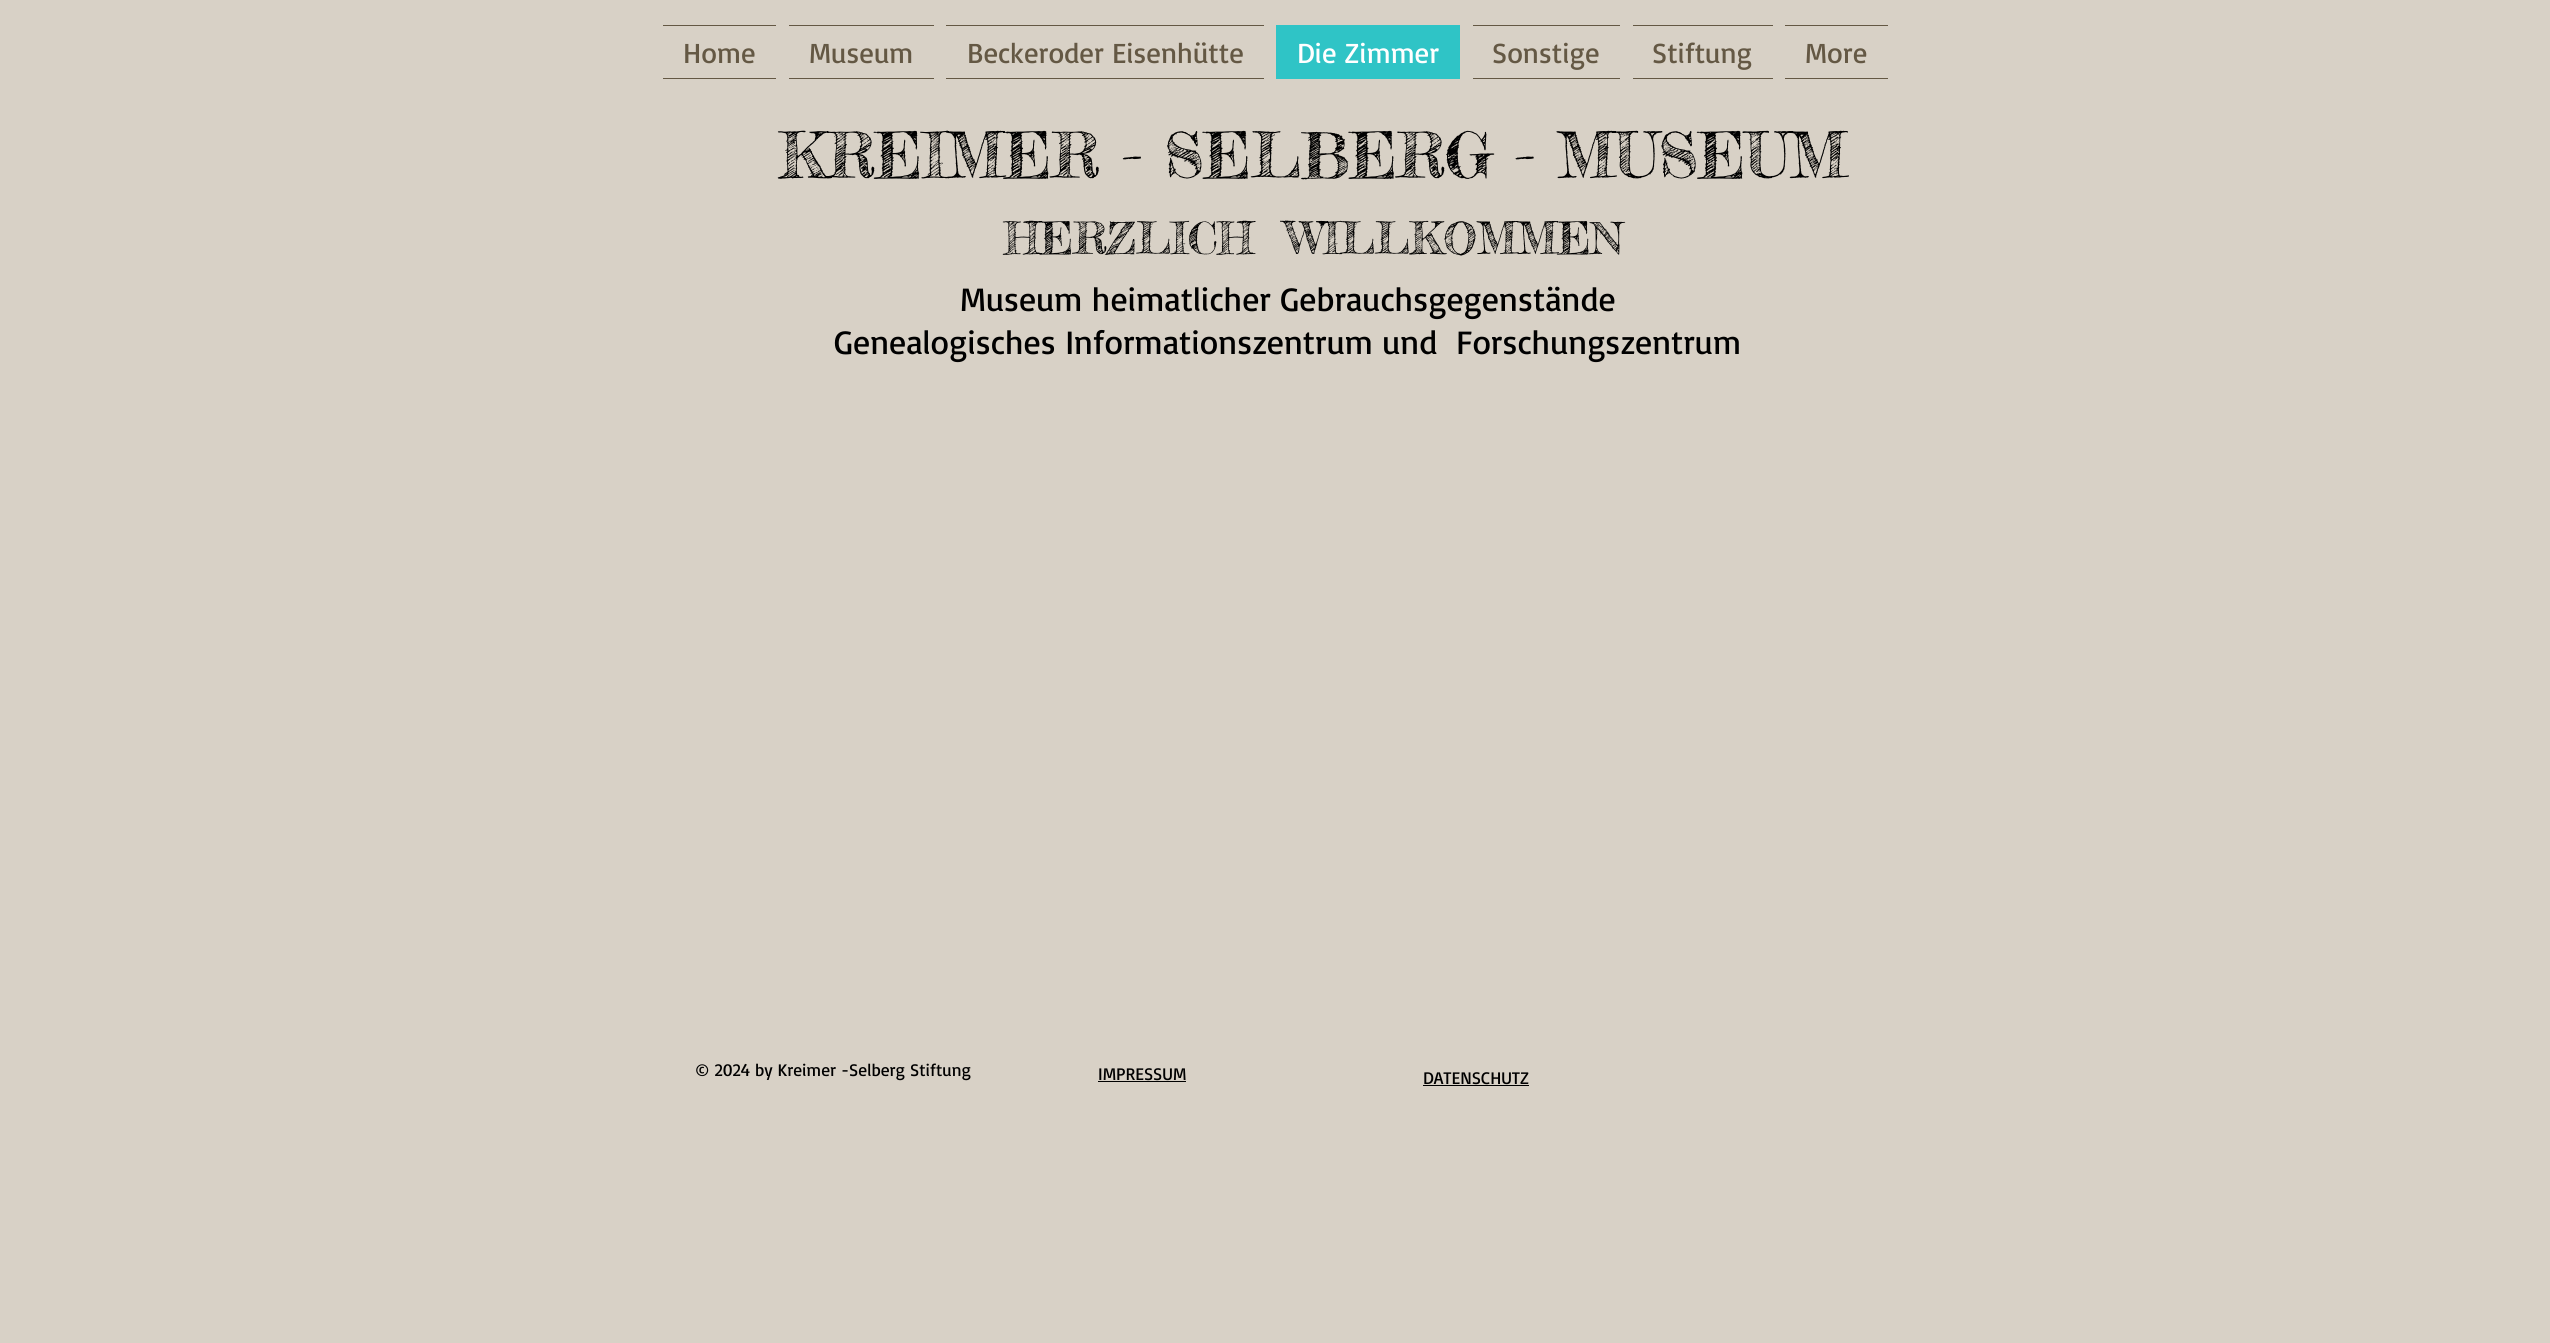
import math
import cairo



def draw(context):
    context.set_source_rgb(216 / 255, 209 / 255, 198 / 255)
    context.paint()
    context.set_source_rgb(100 / 255, 88 / 255, 68 / 255)
    context.rectangle(663, 25, 113, 1)
    context.fill()
    context.rectangle(663, 78, 113, 1)
    context.fill()
    context.rectangle(789, 25, 145, 1)
    context.fill()
    context.rectangle(789, 78, 145, 1)
    context.fill()
    context.rectangle(946, 25, 318, 1)
    context.fill()
    context.rectangle(946, 78, 318, 1)
    context.fill()
    context.set_source_rgb(47 / 255, 196 / 255, 198 / 255)
    context.rectangle(1276, 25, 184, 54)
    context.fill()
    context.set_source_rgb(100 / 255, 88 / 255, 68 / 255)
    context.rectangle(1473, 25, 147, 1)
    context.fill()
    context.rectangle(1473, 78, 147, 1)
    context.fill()
    context.rectangle(1633, 25, 140, 1)
    context.fill()
    context.rectangle(1633, 78, 140, 1)
    context.fill()
    context.rectangle(1785, 25, 103, 1)
    context.fill()
    context.rectangle(1785, 78, 103, 1)
    context.fill()
    context.set_source_rgb(0, 0, 0)
    context.rectangle(1098, 1081, 88, 1)
    context.fill()
    context.rectangle(1423, 1085, 106, 1)
    context.fill()
    context.select_font_face("Basic")
    context.set_font_size(28.75)
    context.set_source_rgb(100 / 255, 88 / 255, 68 / 255)
    context.move_to(683, 63)
    context.show_text("Home")
    context.move_to(809, 63)
    context.show_text("Museum")
    context.move_to(967, 63)
    context.show_text("Beckeroder Eisenhütte")
    context.set_source_rgb(1, 1, 1)
    context.move_to(1297, 63)
    context.show_text("Die Zimmer")
    context.set_source_rgb(100 / 255, 88 / 255, 68 / 255)
    context.move_to(1492, 63)
    context.show_text("Sonstige")
    context.move_to(1652, 63)
    context.show_text("Stiftung")
    context.move_to(1805, 63)
    context.show_text("More")
    context.select_font_face("Fredericka the Great")
    context.set_font_size(62.5)
    context.set_source_rgb(0, 0, 0)
    context.move_to(779, 178)
    context.show_text("KREIMER - SELBERG - MUSEUM")
    context.set_font_size(43.75)
    context.move_to(1004, 254)
    context.show_text("HERZLICH  WILLKOMMEN")
    context.select_font_face("Basic")
    context.set_font_size(33.75)
    context.move_to(960, 311)
    context.show_text("Museum heimatlicher Gebrauchsgegenstände")
    context.move_to(834, 354)
    context.show_text("Genealogisches Informationszentrum und  Forschungszentrum")
    context.set_font_size(17.5)
    context.move_to(695, 1076)
    context.show_text("© 2024 by Kreimer -Selberg Stiftung")
    context.move_to(1098, 1080)
    context.show_text("IMPRESSUM")
    context.move_to(1423, 1084)
    context.show_text("DATENSCHUTZ")


surface = cairo.ImageSurface(cairo.Format.RGB24, 2550, 1343)
context = cairo.Context(surface)
options = cairo.FontOptions()
options.set_hint_metrics(cairo.HintMetrics.OFF)
options.set_hint_style(cairo.HintStyle.NONE)
context.set_font_options(options)
context.set_miter_limit(4)
draw(context)
surface.write_to_png("out.png")
